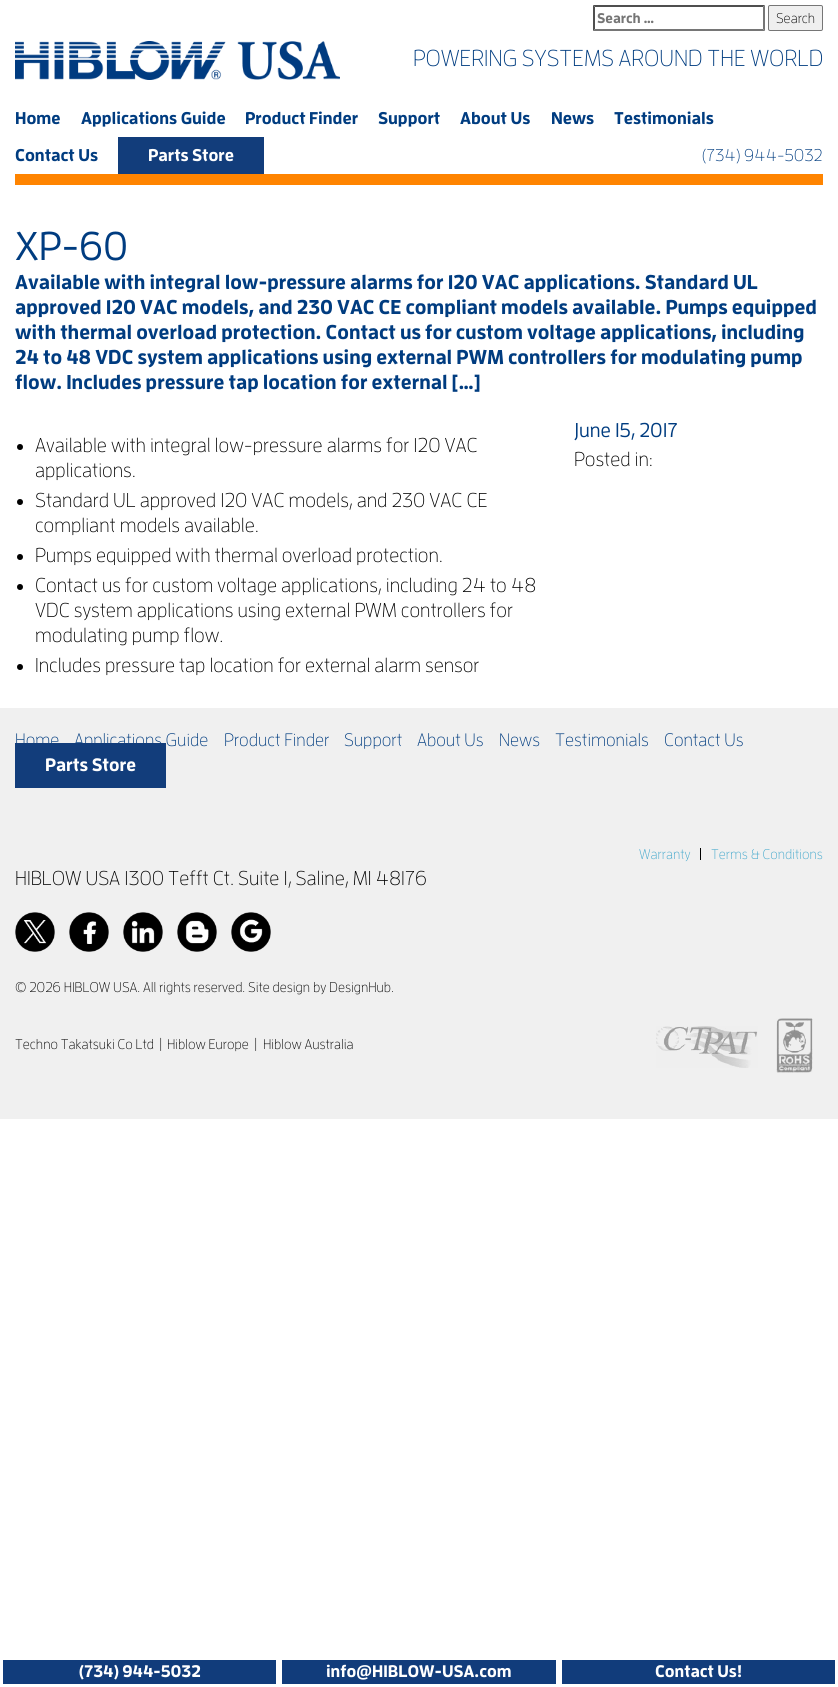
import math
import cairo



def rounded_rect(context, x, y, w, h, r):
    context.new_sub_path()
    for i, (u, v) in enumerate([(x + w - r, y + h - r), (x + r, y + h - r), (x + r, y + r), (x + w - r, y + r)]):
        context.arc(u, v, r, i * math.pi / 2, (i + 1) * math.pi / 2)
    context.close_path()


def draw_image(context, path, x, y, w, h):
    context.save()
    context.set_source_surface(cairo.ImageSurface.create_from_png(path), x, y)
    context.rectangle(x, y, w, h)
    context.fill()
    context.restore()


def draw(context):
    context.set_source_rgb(1, 1, 1)
    context.paint()
    context.set_source_rgb(79 / 255, 79 / 255, 79 / 255)
    context.new_path()
    context.move_to(593, 5)
    context.line_to(765, 5)
    context.line_to(763, 7)
    context.line_to(595, 7)
    context.close_path()
    context.fill()
    context.set_source_rgb(118 / 255, 118 / 255, 118 / 255)
    context.new_path()
    context.move_to(765, 5)
    context.line_to(765, 31)
    context.line_to(763, 29)
    context.line_to(763, 7)
    context.close_path()
    context.fill()
    context.new_path()
    context.move_to(765, 31)
    context.line_to(593, 31)
    context.line_to(595, 29)
    context.line_to(763, 29)
    context.close_path()
    context.fill()
    context.set_source_rgb(79 / 255, 79 / 255, 79 / 255)
    context.new_path()
    context.move_to(593, 31)
    context.line_to(593, 5)
    context.line_to(595, 7)
    context.line_to(595, 29)
    context.close_path()
    context.fill()
    context.set_source_rgb(239 / 255, 239 / 255, 239 / 255)
    rounded_rect(context, 768.5, 5.5, 54, 25, 1.5)
    context.fill_preserve()
    context.set_source_rgb(118 / 255, 118 / 255, 118 / 255)
    context.set_line_width(1)
    context.stroke()
    draw_image(context, "images/1.png", 15, 41, 325, 39)
    context.set_source_rgb(1, 132 / 255, 0)
    context.rectangle(15, 174, 808, 11)
    context.fill()
    context.set_source_rgb(18 / 255, 61 / 255, 123 / 255)
    context.rectangle(118, 137, 146, 37)
    context.fill()
    context.set_source_rgb(0, 0, 0)
    context.arc(20, 447, 3, 0, 2 * math.pi)
    context.fill()
    context.arc(20, 502, 3, 0, 2 * math.pi)
    context.fill()
    context.arc(20, 557, 3, 0, 2 * math.pi)
    context.fill()
    context.arc(20, 587, 3, 0, 2 * math.pi)
    context.fill()
    context.arc(20, 667, 3, 0, 2 * math.pi)
    context.fill()
    context.set_source_rgb(240 / 255, 240 / 255, 240 / 255)
    context.rectangle(0, 708, 838, 411)
    context.fill()
    context.set_source_rgb(0, 0, 0)
    context.rectangle(700, 848, 1, 12)
    context.fill()
    draw_image(context, "images/2.png", 15, 912, 40, 40)
    draw_image(context, "images/3.png", 69, 912, 40, 40)
    draw_image(context, "images/4.png", 123, 912, 40, 40)
    draw_image(context, "images/5.png", 177, 912, 40, 40)
    draw_image(context, "images/6.png", 231, 912, 40, 40)
    draw_image(context, "images/7.png", 656, 1026, 102, 42)
    draw_image(context, "images/8.png", 776, 1018, 37, 55)
    context.set_source_rgb(17 / 255, 60 / 255, 123 / 255)
    context.rectangle(3, 1660, 273, 24)
    context.fill()
    context.rectangle(282, 1660, 274, 24)
    context.fill()
    context.rectangle(562, 1660, 273, 24)
    context.fill()
    context.select_font_face("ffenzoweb", cairo.FontSlant.NORMAL, cairo.FontWeight.BOLD)
    context.set_font_size(14)
    context.set_source_rgb(117 / 255, 117 / 255, 117 / 255)
    context.move_to(597, 23)
    context.show_text("Search …")
    context.select_font_face("ffenzoweb")
    context.set_source_rgb(0, 0, 0)
    context.move_to(776, 23)
    context.show_text("Search")
    context.set_font_size(23)
    context.set_source_rgb(0, 60 / 255, 128 / 255)
    context.move_to(413, 66)
    context.show_text("POWERING SYSTEMS AROUND THE WORLD")
    context.select_font_face("ffenzoweb", cairo.FontSlant.NORMAL, cairo.FontWeight.BOLD)
    context.set_font_size(17)
    context.move_to(15, 124)
    context.show_text("Home")
    context.move_to(81, 124)
    context.show_text("Applications Guide")
    context.move_to(245, 124)
    context.show_text("Product Finder")
    context.move_to(378, 124)
    context.show_text("Support")
    context.move_to(460, 124)
    context.show_text("About Us")
    context.move_to(551, 124)
    context.show_text("News")
    context.move_to(614, 124)
    context.show_text("Testimonials")
    context.move_to(15, 161)
    context.show_text("Contact Us")
    context.set_source_rgb(1, 1, 1)
    context.move_to(148, 161)
    context.show_text("Parts Store")
    context.select_font_face("ffenzoweb")
    context.set_source_rgb(0, 60 / 255, 128 / 255)
    context.move_to(702, 161)
    context.show_text("(734) 944-5032")
    context.select_font_face("ffenzoweb Medium")
    context.set_font_size(40)
    context.move_to(15, 260)
    context.show_text("XP-60")
    context.select_font_face("ffenzoweb", cairo.FontSlant.NORMAL, cairo.FontWeight.BOLD)
    context.set_font_size(20)
    context.move_to(15, 289)
    context.show_text("Available with integral low-pressure alarms for 120 VAC applications. Standard UL")
    context.move_to(15, 314)
    context.show_text("approved 120 VAC models, and 230 VAC CE compliant models available. Pumps equipped")
    context.move_to(15, 339)
    context.show_text("with thermal overload protection. Contact us for custom voltage applications, including")
    context.move_to(15, 364)
    context.show_text("24 to 48 VDC system applications using external PWM controllers for modulating pump")
    context.move_to(15, 389)
    context.show_text("flow. Includes pressure tap location for external […]")
    context.select_font_face("ffenzoweb")
    context.set_source_rgb(0, 0, 0)
    context.move_to(35, 452)
    context.show_text("Available with integral low-pressure alarms for 120 VAC")
    context.move_to(35, 477)
    context.show_text("applications.")
    context.move_to(35, 507)
    context.show_text("Standard UL approved 120 VAC models, and 230 VAC CE")
    context.move_to(35, 532)
    context.show_text("compliant models available.")
    context.move_to(35, 562)
    context.show_text("Pumps equipped with thermal overload protection.")
    context.move_to(35, 592)
    context.show_text("Contact us for custom voltage applications, including 24 to 48")
    context.move_to(35, 617)
    context.show_text("VDC system applications using external PWM controllers for")
    context.move_to(35, 642)
    context.show_text("modulating pump flow.")
    context.move_to(35, 672)
    context.show_text("Includes pressure tap location for external alarm sensor")
    context.select_font_face("ffenzoweb Medium")
    context.set_source_rgb(0, 60 / 255, 128 / 255)
    context.move_to(574, 437)
    context.show_text("June 15, 2017")
    context.select_font_face("ffenzoweb")
    context.set_source_rgb(0, 0, 0)
    context.move_to(574, 466)
    context.show_text("Posted in:")
    context.set_font_size(18)
    context.set_source_rgb(0, 60 / 255, 128 / 255)
    context.move_to(15, 746)
    context.show_text("Home")
    context.move_to(74, 746)
    context.show_text("Applications Guide")
    context.move_to(224, 746)
    context.show_text("Product Finder")
    context.move_to(344, 746)
    context.show_text("Support")
    context.move_to(417, 746)
    context.show_text("About Us")
    context.move_to(499, 746)
    context.show_text("News")
    context.move_to(555, 746)
    context.show_text("Testimonials")
    context.move_to(664, 746)
    context.show_text("Contact Us")
    context.set_source_rgb(18 / 255, 61 / 255, 123 / 255)
    context.rectangle(15, 743, 151, 45)
    context.fill()
    context.select_font_face("ffenzoweb", cairo.FontSlant.NORMAL, cairo.FontWeight.BOLD)
    context.set_source_rgb(1, 1, 1)
    context.move_to(45, 771)
    context.show_text("Parts Store")
    context.select_font_face("ffenzoweb")
    context.set_font_size(14)
    context.set_source_rgb(62 / 255, 166 / 255, 203 / 255)
    context.move_to(639, 859)
    context.show_text("Warranty")
    context.move_to(711, 859)
    context.show_text("Terms & Conditions")
    context.set_font_size(20)
    context.set_source_rgb(0, 0, 0)
    context.move_to(15, 885)
    context.show_text("HIBLOW USA 1300 Tefft Ct. Suite 1, Saline, MI 48176")
    context.set_font_size(14)
    context.move_to(15, 992)
    context.show_text("© 2026 HIBLOW USA. All rights reserved. Site design by DesignHub.")
    context.move_to(15, 1049)
    context.show_text("Techno Takatsuki Co Ltd")
    context.move_to(159, 1049)
    context.show_text("|")
    context.move_to(167, 1049)
    context.show_text("Hiblow Europe")
    context.move_to(254, 1049)
    context.show_text("|")
    context.move_to(263, 1049)
    context.show_text("Hiblow Australia")
    context.select_font_face("ffenzoweb", cairo.FontSlant.NORMAL, cairo.FontWeight.BOLD)
    context.set_font_size(16.75)
    context.set_source_rgb(1, 1, 1)
    context.move_to(79, 1677)
    context.show_text("(734) 944-5032")
    context.move_to(326, 1677)
    context.show_text("info@HIBLOW-USA.com")
    context.move_to(655, 1677)
    context.show_text("Contact Us!")


surface = cairo.ImageSurface(cairo.Format.RGB24, 838, 1687)
context = cairo.Context(surface)
options = cairo.FontOptions()
options.set_hint_metrics(cairo.HintMetrics.OFF)
options.set_hint_style(cairo.HintStyle.NONE)
context.set_font_options(options)
context.set_miter_limit(4)
draw(context)
surface.write_to_png("out.png")
